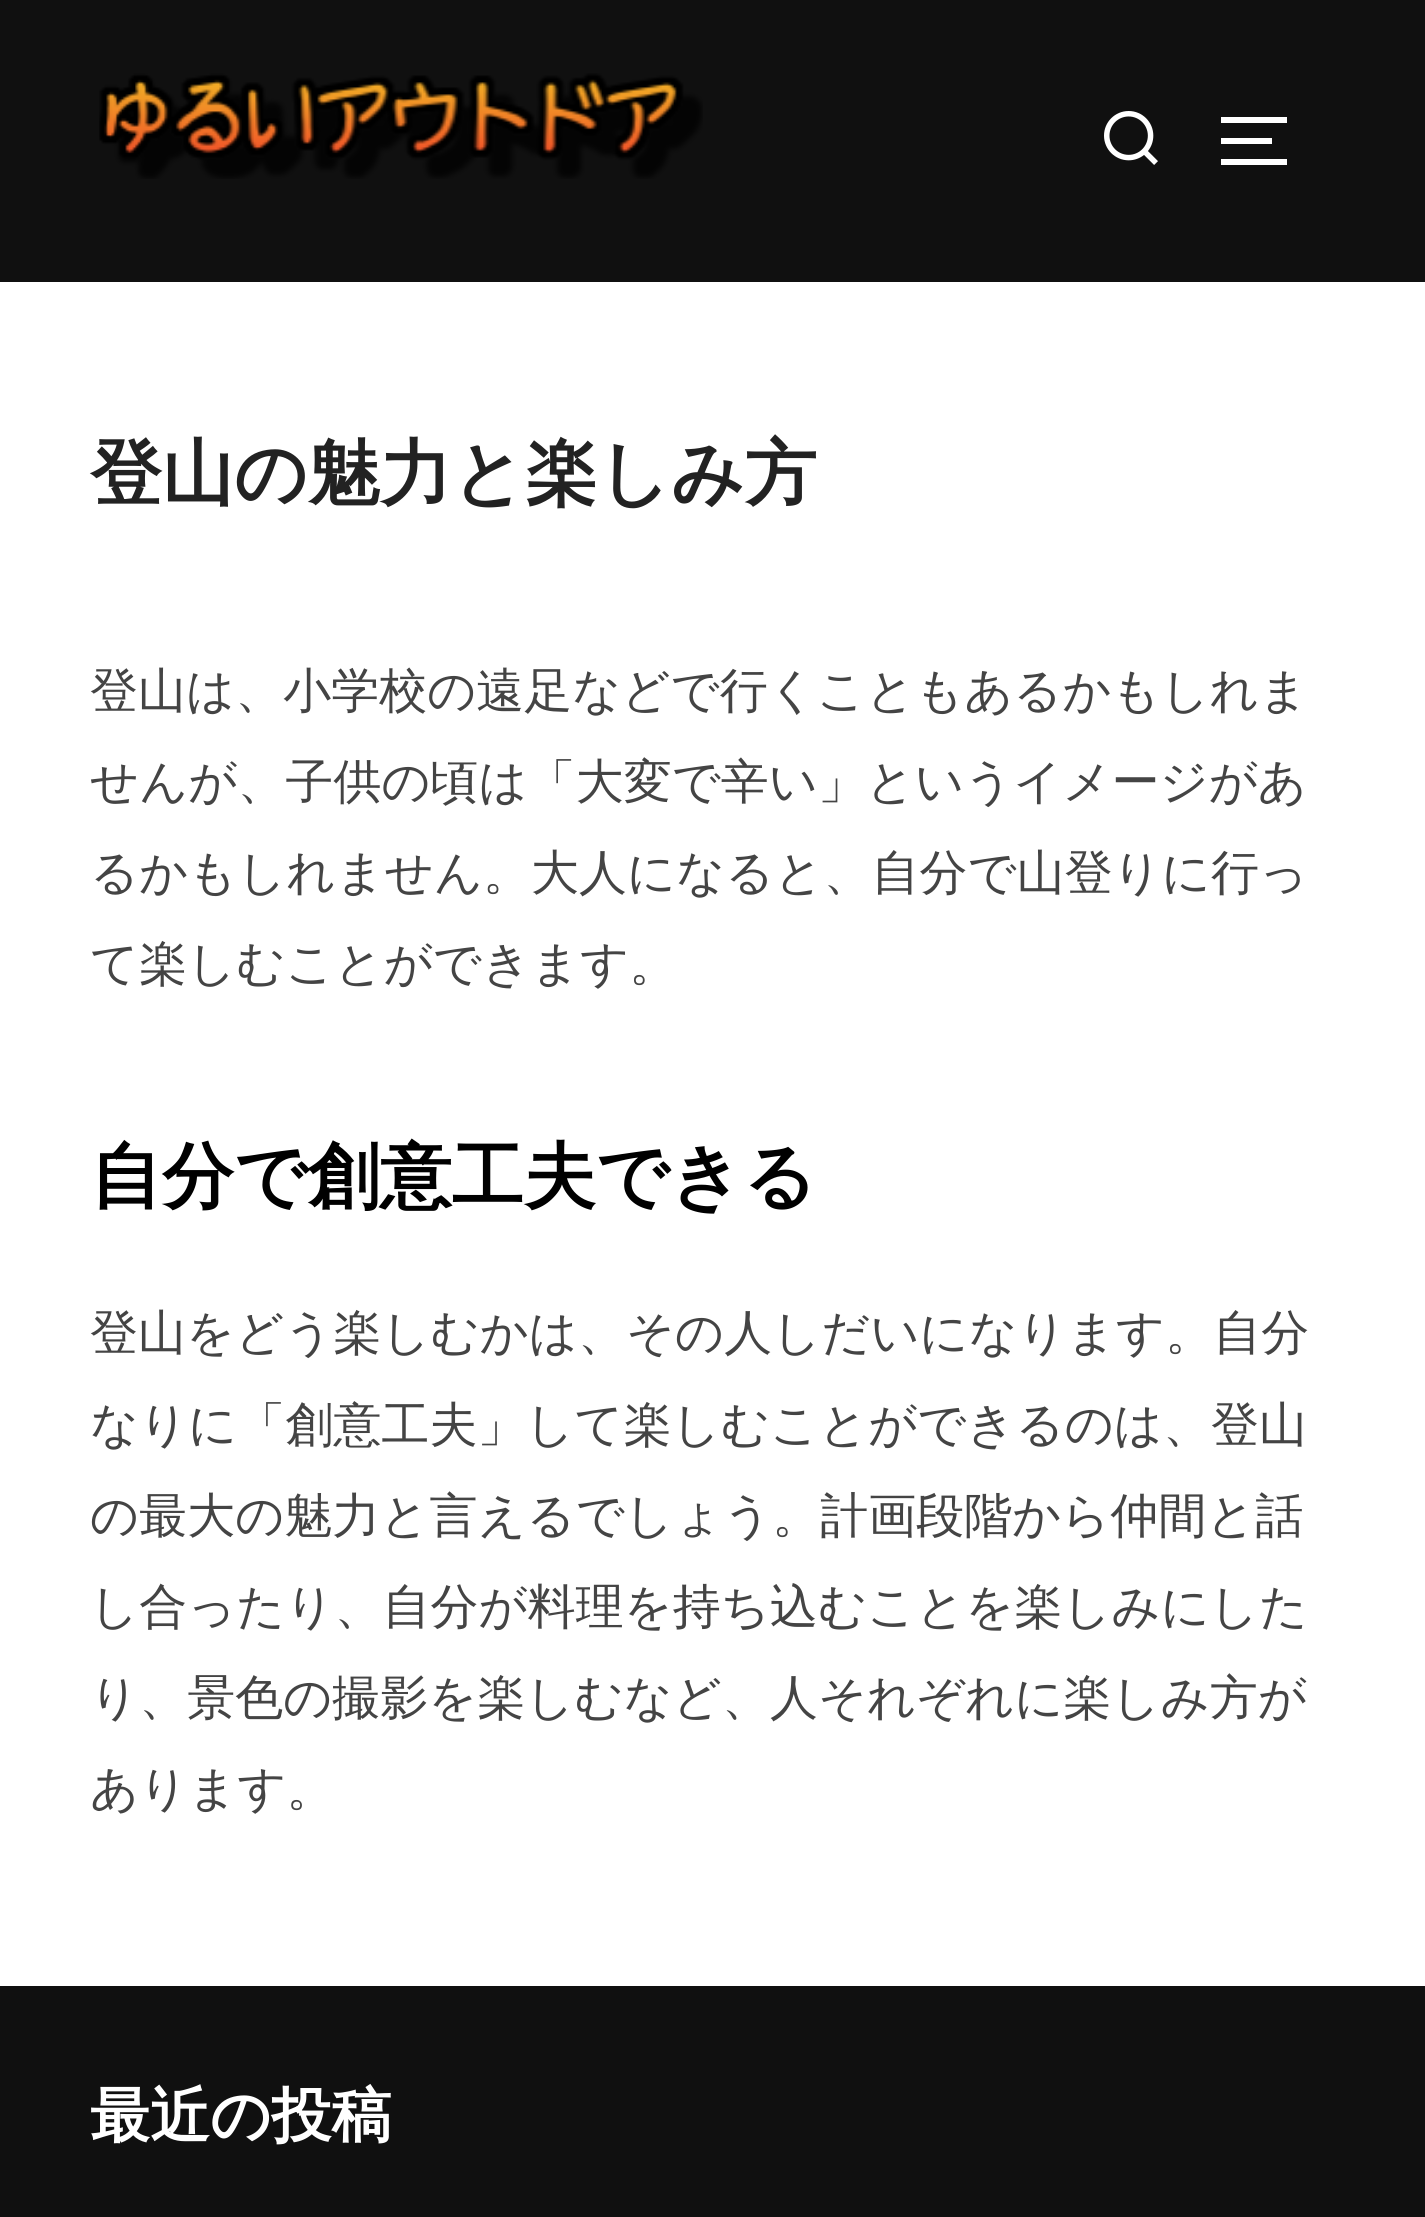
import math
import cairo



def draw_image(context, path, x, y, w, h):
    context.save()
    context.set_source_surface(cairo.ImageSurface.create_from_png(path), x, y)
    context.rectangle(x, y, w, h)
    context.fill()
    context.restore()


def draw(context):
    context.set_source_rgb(1, 1, 1)
    context.paint()
    context.set_source_rgb(16 / 255, 16 / 255, 16 / 255)
    context.rectangle(0, 0, 1425, 282)
    context.fill()
    draw_image(context, "images/1.png", 99, 73, 604, 106)
    draw_image(context, "images/2.png", 1104, 111, 54, 54)
    context.set_source_rgb(1, 1, 1)
    context.rectangle(1221, 117, 66, 6)
    context.fill()
    context.rectangle(1221, 138, 51, 6)
    context.fill()
    context.rectangle(1221, 159, 66, 6)
    context.fill()
    context.set_source_rgb(16 / 255, 16 / 255, 16 / 255)
    context.rectangle(0, 1986, 1425, 231)
    context.fill()
    context.select_font_face("WenQuanYi Zen Hei", cairo.FontSlant.NORMAL, cairo.FontWeight.BOLD)
    context.set_font_size(72)
    context.set_source_rgb(34 / 255, 34 / 255, 34 / 255)
    context.move_to(90, 498)
    context.show_text("登山の魅力と楽しみ方")
    context.select_font_face("WenQuanYi Zen Hei Medium")
    context.set_font_size(48)
    context.set_source_rgb(68 / 255, 68 / 255, 68 / 255)
    context.move_to(90, 707)
    context.show_text("登山は、小学校の遠足などで行くこともあるかもしれま")
    context.move_to(90, 798)
    context.show_text("せんが、子供の頃は「大変で辛い」というイメージがあ")
    context.move_to(90, 889)
    context.show_text("るかもしれません。大人になると、自分で山登りに行っ")
    context.move_to(90, 980)
    context.show_text("て楽しむことができます。")
    context.select_font_face("WenQuanYi Zen Hei", cairo.FontSlant.NORMAL, cairo.FontWeight.BOLD)
    context.set_font_size(72)
    context.set_source_rgb(0, 0, 0)
    context.move_to(90, 1201)
    context.show_text("自分で創意工夫できる")
    context.select_font_face("WenQuanYi Zen Hei Medium")
    context.set_font_size(48)
    context.set_source_rgb(68 / 255, 68 / 255, 68 / 255)
    context.move_to(90, 1349)
    context.show_text("登山をどう楽しむかは、その人しだいになります。自分")
    context.move_to(90, 1441)
    context.show_text("なりに「創意工夫」して楽しむことができるのは、登山")
    context.move_to(90, 1532)
    context.show_text("の最大の魅力と言えるでしょう。計画段階から仲間と話")
    context.move_to(90, 1623)
    context.show_text("し合ったり、自分が料理を持ち込むことを楽しみにした")
    context.move_to(90, 1714)
    context.show_text("り、景色の撮影を楽しむなど、人それぞれに楽しみ方が")
    context.move_to(90, 1805)
    context.show_text("あります。")
    context.select_font_face("WenQuanYi Zen Hei", cairo.FontSlant.NORMAL, cairo.FontWeight.BOLD)
    context.set_font_size(60)
    context.set_source_rgb(1, 1, 1)
    context.move_to(90, 2136)
    context.show_text("最近の投稿")


surface = cairo.ImageSurface(cairo.Format.RGB24, 1425, 2217)
context = cairo.Context(surface)
options = cairo.FontOptions()
options.set_hint_metrics(cairo.HintMetrics.OFF)
options.set_hint_style(cairo.HintStyle.NONE)
context.set_font_options(options)
context.set_miter_limit(4)
draw(context)
surface.write_to_png("out.png")
